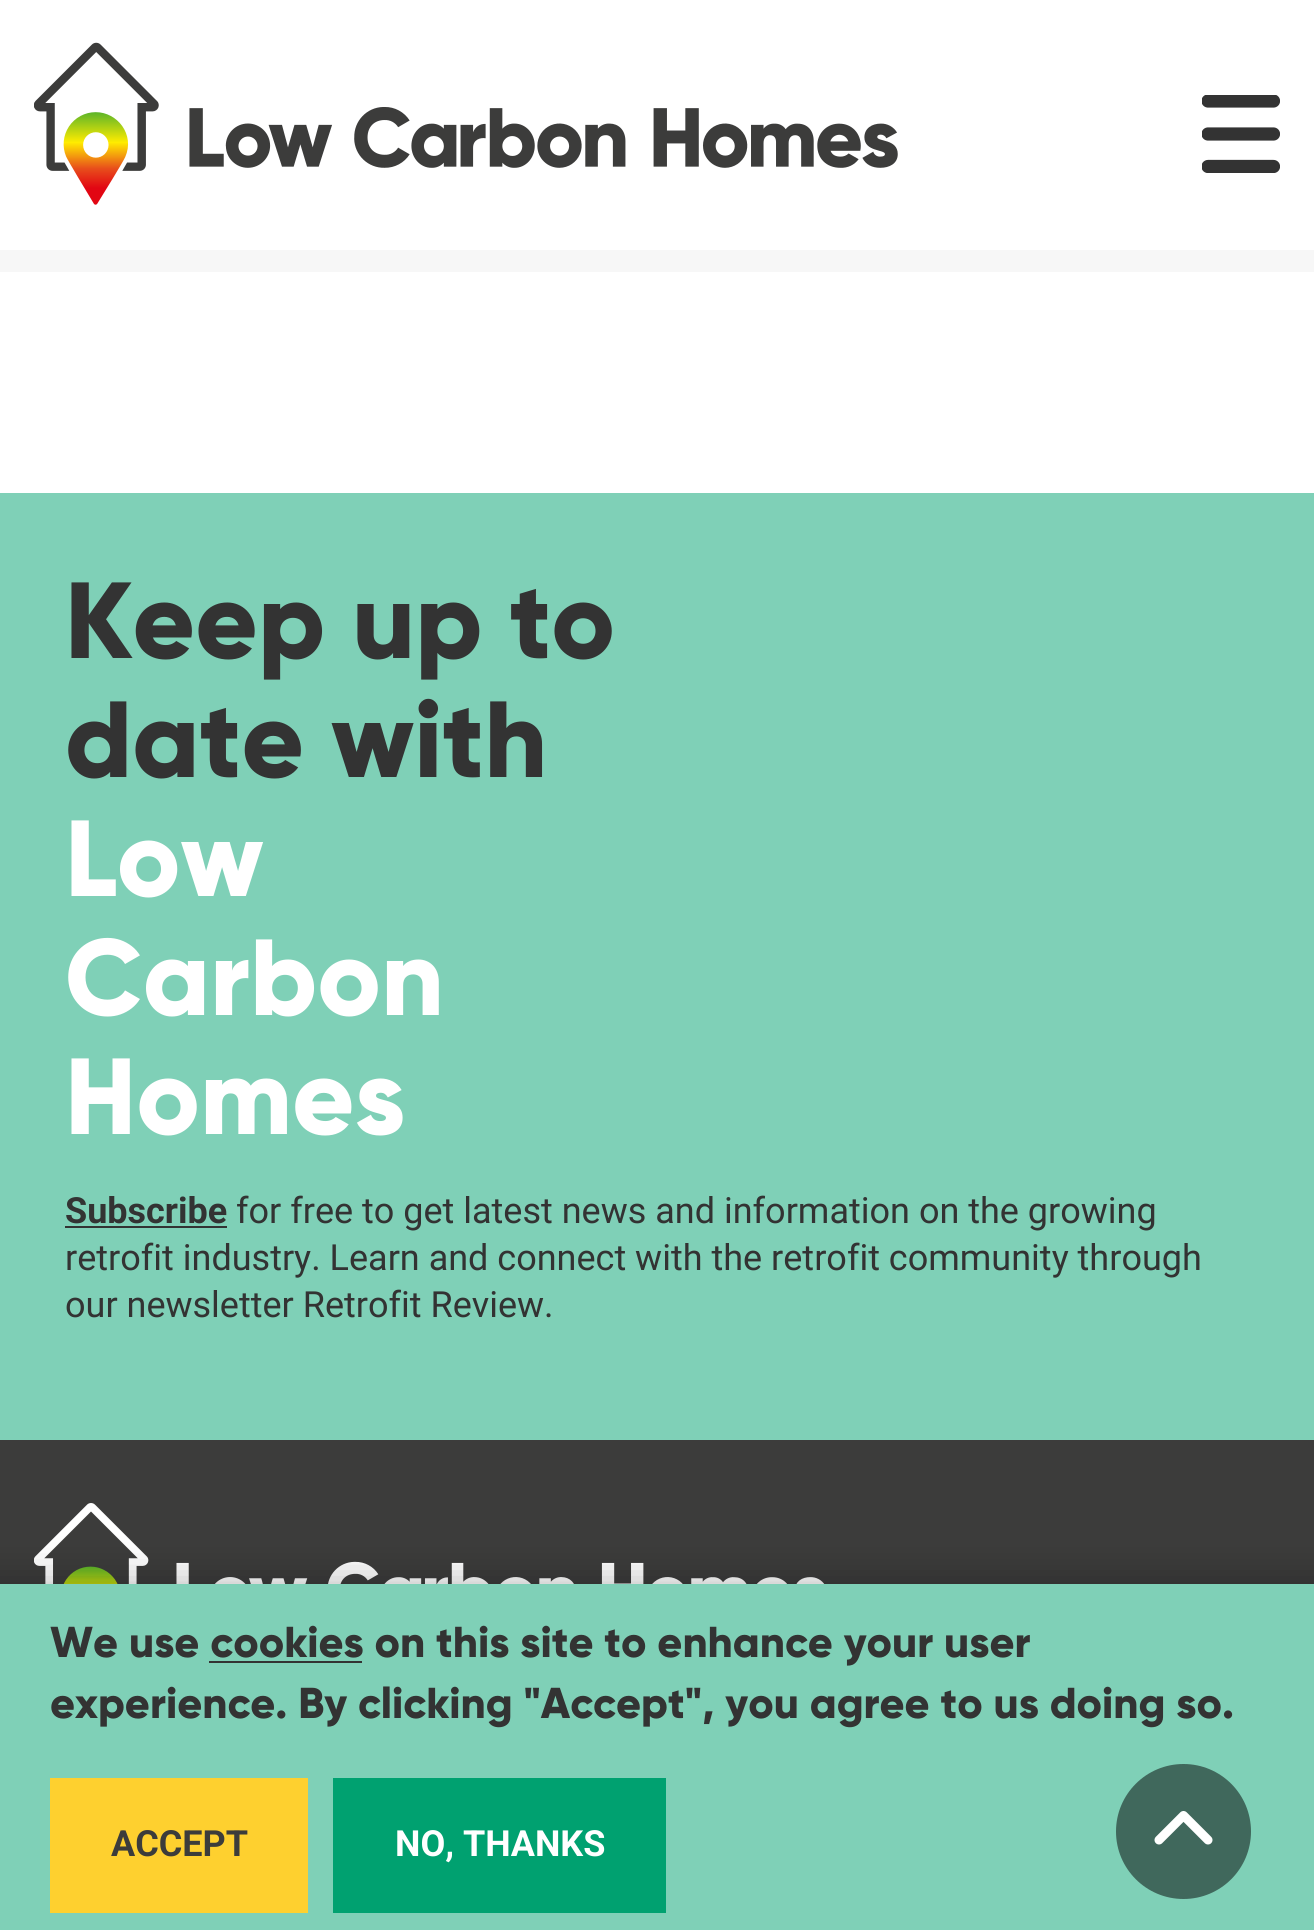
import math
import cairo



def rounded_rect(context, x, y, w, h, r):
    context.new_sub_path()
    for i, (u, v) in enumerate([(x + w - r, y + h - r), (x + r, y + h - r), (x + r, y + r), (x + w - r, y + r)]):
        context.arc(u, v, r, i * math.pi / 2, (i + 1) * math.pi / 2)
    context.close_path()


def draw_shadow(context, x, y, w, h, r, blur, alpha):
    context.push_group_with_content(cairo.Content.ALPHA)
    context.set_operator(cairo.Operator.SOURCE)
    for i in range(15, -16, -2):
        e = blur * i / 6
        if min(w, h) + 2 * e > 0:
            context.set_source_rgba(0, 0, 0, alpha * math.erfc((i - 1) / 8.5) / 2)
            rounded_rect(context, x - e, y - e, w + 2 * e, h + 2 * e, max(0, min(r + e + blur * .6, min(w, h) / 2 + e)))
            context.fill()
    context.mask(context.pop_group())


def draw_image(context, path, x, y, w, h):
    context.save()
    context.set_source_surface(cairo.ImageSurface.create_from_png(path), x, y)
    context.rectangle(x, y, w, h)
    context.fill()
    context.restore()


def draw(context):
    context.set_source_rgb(1, 1, 1)
    context.paint()
    draw_image(context, "images/1.png", 34, 42, 864, 163)
    context.save()
    context.rectangle(1202, 95, 78, 78)
    context.clip()
    context.new_path()
    context.move_to(1273.5, 101)
    context.line_to(1208, 101)
    context.set_source_rgb(51 / 255, 51 / 255, 51 / 255)
    context.set_line_width(13.2)
    context.set_line_cap(cairo.LineCap.ROUND)
    context.set_line_join(cairo.LineJoin.ROUND)
    context.stroke()
    context.new_path()
    context.move_to(1273.5, 134)
    context.line_to(1208, 134)
    context.stroke()
    context.new_path()
    context.move_to(1273.5, 166.5)
    context.line_to(1208, 166.5)
    context.stroke()
    context.restore()
    context.set_source_rgb(247 / 255, 247 / 255, 247 / 255)
    context.rectangle(0, 250, 1314, 22)
    context.fill()
    context.set_source_rgb(127 / 255, 208 / 255, 183 / 255)
    context.rectangle(0, 493, 1314, 947)
    context.fill()
    context.set_source_rgb(51 / 255, 51 / 255, 51 / 255)
    context.rectangle(65, 1226, 162, 2)
    context.fill()
    context.set_source_rgb(60 / 255, 60 / 255, 59 / 255)
    context.rectangle(0, 1440, 1314, 144)
    context.fill()
    draw_image(context, "images/2.png", 34, 1503, 791, 81)
    context.set_source_rgb(0, 0, 0)
    draw_shadow(context, -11, 1573, 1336, 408, 0, 17, 0.2)
    context.set_source_rgb(127 / 255, 208 / 255, 183 / 255)
    context.rectangle(0, 1584, 1314, 346)
    context.fill()
    context.set_source_rgb(51 / 255, 51 / 255, 51 / 255)
    context.rectangle(209, 1661, 153, 2)
    context.fill()
    context.set_source_rgb(254 / 255, 208 / 255, 47 / 255)
    context.rectangle(50, 1778, 258, 135)
    context.fill()
    context.set_source_rgb(0, 161 / 255, 112 / 255)
    context.rectangle(333, 1778, 333, 135)
    context.fill()
    context.set_source_rgb(64 / 255, 104 / 255, 92 / 255)
    context.arc(1183.5, 1831.5, 67.5, 0, 2 * math.pi)
    context.fill()
    context.new_path()
    context.move_to(1208, 1840)
    context.line_to(1183.5, 1815.5)
    context.line_to(1159, 1840)
    context.set_source_rgb(1, 1, 1)
    context.set_line_width(9)
    context.set_line_cap(cairo.LineCap.ROUND)
    context.set_line_join(cairo.LineJoin.ROUND)
    context.stroke()
    context.select_font_face("Gilroy ExtraBold")
    context.set_font_size(108)
    context.set_source_rgb(51 / 255, 51 / 255, 51 / 255)
    context.move_to(65, 658)
    context.show_text("Keep up to")
    context.move_to(65, 777)
    context.show_text("date with")
    context.set_source_rgb(1, 1, 1)
    context.move_to(65, 896)
    context.show_text("Low")
    context.move_to(65, 1015)
    context.show_text("Carbon")
    context.move_to(65, 1134)
    context.show_text("Homes")
    context.select_font_face("Roboto", cairo.FontSlant.NORMAL, cairo.FontWeight.BOLD)
    context.set_font_size(36)
    context.set_source_rgb(51 / 255, 51 / 255, 51 / 255)
    context.move_to(65, 1223)
    context.show_text("Subscribe")
    context.select_font_face("Roboto")
    context.move_to(236, 1223)
    context.show_text("for free to get latest news and information on the growing")
    context.move_to(65, 1270)
    context.show_text("retrofit industry. Learn and connect with the retrofit community through")
    context.move_to(65, 1317)
    context.show_text("our newsletter Retrofit Review.")
    context.select_font_face("Gilroy ExtraBold")
    context.set_font_size(43.2)
    context.move_to(50, 1657)
    context.show_text("We use cookies on this site to enhance your user")
    context.move_to(50, 1718)
    context.show_text("experience. By clicking \"Accept\", you agree to us doing so.")
    context.select_font_face("Roboto", cairo.FontSlant.NORMAL, cairo.FontWeight.BOLD)
    context.set_font_size(36)
    context.set_source_rgb(60 / 255, 60 / 255, 59 / 255)
    context.move_to(111, 1856)
    context.show_text("ACCEPT")
    context.set_source_rgb(1, 1, 1)
    context.move_to(395, 1856)
    context.show_text("NO, THANKS")


surface = cairo.ImageSurface(cairo.Format.RGB24, 1314, 1930)
context = cairo.Context(surface)
options = cairo.FontOptions()
options.set_hint_metrics(cairo.HintMetrics.OFF)
options.set_hint_style(cairo.HintStyle.NONE)
context.set_font_options(options)
context.set_miter_limit(4)
draw(context)
surface.write_to_png("out.png")
